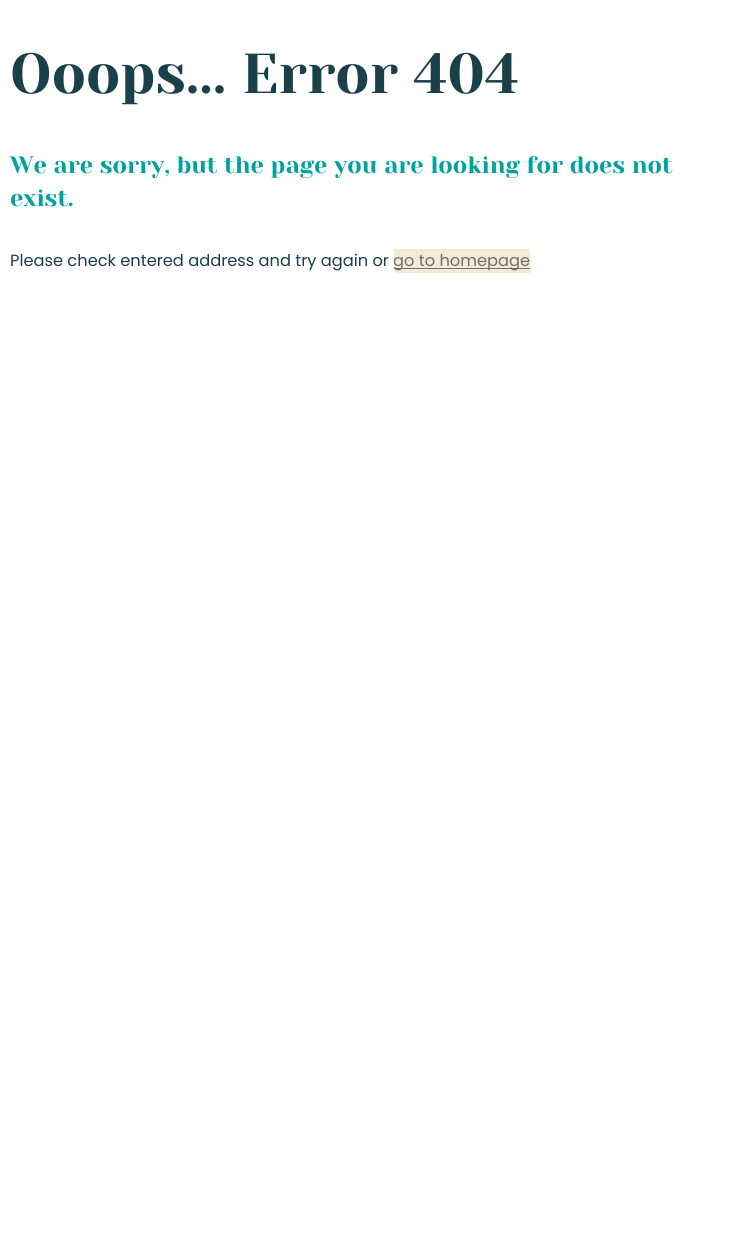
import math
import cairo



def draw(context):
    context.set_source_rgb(1, 1, 1)
    context.paint()
    context.set_source_rgb(245 / 255, 233 / 255, 218 / 255)
    context.rectangle(394, 249, 136, 24)
    context.fill()
    context.set_source_rgb(118 / 255, 111 / 255, 101 / 255)
    context.rectangle(394, 268, 136, 1)
    context.fill()
    context.select_font_face("Yeseva One")
    context.set_font_size(56.25)
    context.set_source_rgb(26 / 255, 64 / 255, 74 / 255)
    context.move_to(10, 93)
    context.show_text("Ooops... Error 404")
    context.set_font_size(23.75)
    context.set_source_rgb(0, 162 / 255, 160 / 255)
    context.move_to(10, 173)
    context.show_text("We are sorry, but the page you are looking for does not")
    context.move_to(10, 206)
    context.show_text("exist.")
    context.select_font_face("Poppins")
    context.set_font_size(16.25)
    context.set_source_rgb(26 / 255, 64 / 255, 74 / 255)
    context.move_to(10, 266)
    context.show_text("Please check entered address and try again or")
    context.set_source_rgb(118 / 255, 111 / 255, 101 / 255)
    context.move_to(393, 266)
    context.show_text("go to homepage")


surface = cairo.ImageSurface(cairo.Format.RGB24, 741, 1234)
context = cairo.Context(surface)
options = cairo.FontOptions()
options.set_hint_metrics(cairo.HintMetrics.OFF)
options.set_hint_style(cairo.HintStyle.NONE)
context.set_font_options(options)
context.set_miter_limit(4)
draw(context)
surface.write_to_png("out.png")
